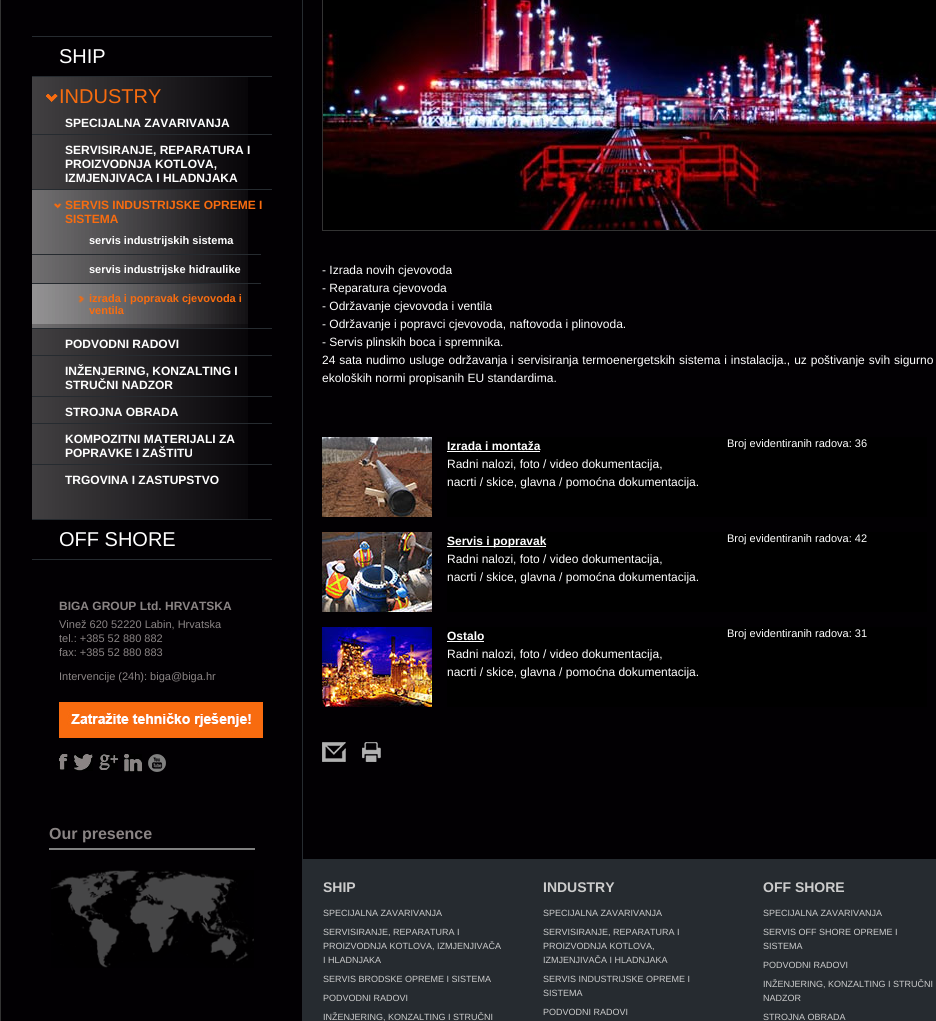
import math
import cairo



def draw_spaced(context, x, y, s, letter, word):
    context.move_to(x, y)
    for ch in s:
        context.show_text(ch)
        context.rel_move_to(letter + word * (ch == ' '), 0)


def draw_image(context, path, x, y, w, h):
    context.save()
    context.set_source_surface(cairo.ImageSurface.create_from_png(path), x, y)
    context.rectangle(x, y, w, h)
    context.fill()
    context.restore()


def draw(context):
    context.set_source_rgb(2 / 255, 0, 3 / 255)
    context.paint()
    context.set_source_rgb(51 / 255, 51 / 255, 51 / 255)
    context.rectangle(0, 0, 1, 1021)
    context.fill()
    context.set_source_rgb(38 / 255, 43 / 255, 48 / 255)
    context.rectangle(32, 559, 240, 1)
    context.fill()
    context.rectangle(32, 36, 240, 1)
    context.fill()
    draw_image(context, "images/1.png", 32, 77, 216, 442)
    context.rectangle(32, 76, 240, 1)
    context.fill()
    draw_image(context, "images/2.png", 46, 94, 12, 8)
    context.rectangle(32, 134, 240, 1)
    context.fill()
    context.rectangle(32, 189, 240, 1)
    context.fill()
    draw_image(context, "images/3.png", 32, 190, 216, 138)
    context.rectangle(32, 328, 240, 1)
    context.fill()
    draw_image(context, "images/4.png", 54, 203, 8, 6)
    context.rectangle(32, 254, 229, 1)
    context.fill()
    context.rectangle(32, 283, 229, 1)
    context.fill()
    draw_image(context, "images/5.png", 32, 284, 216, 40)
    draw_image(context, "images/6.png", 78, 296, 7, 7)
    context.rectangle(32, 355, 240, 1)
    context.fill()
    context.rectangle(32, 396, 240, 1)
    context.fill()
    context.rectangle(32, 423, 240, 1)
    context.fill()
    context.rectangle(32, 464, 240, 1)
    context.fill()
    context.rectangle(32, 519, 240, 1)
    context.fill()
    draw_image(context, "images/7.png", 59, 702, 204, 36)
    draw_image(context, "images/8.png", 59, 754, 9, 16)
    draw_image(context, "images/9.png", 74, 754, 19, 17)
    draw_image(context, "images/10.png", 99, 754, 19, 16)
    draw_image(context, "images/11.png", 124, 754, 18, 18)
    draw_image(context, "images/12.png", 148, 754, 18, 18)
    context.set_source_rgb(128 / 255, 128 / 255, 128 / 255)
    context.rectangle(49, 848, 206, 2)
    context.fill()
    draw_image(context, "images/13.png", 51, 870, 203, 98)
    context.set_source_rgb(38 / 255, 43 / 255, 48 / 255)
    context.rectangle(302, 0, 1, 1021)
    context.fill()
    context.rectangle(322.5, -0.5, 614, 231)
    context.set_source_rgb(51 / 255, 51 / 255, 51 / 255)
    context.set_line_width(1)
    context.stroke()
    draw_image(context, "images/14.png", 323, 0, 613, 230)
    draw_image(context, "images/15.png", 322, 437, 110, 80)
    context.set_source_rgb(0, 0, 0)
    context.rectangle(447, 437, 480, 80)
    context.fill()
    context.set_source_rgb(1, 1, 1)
    context.rectangle(447, 451, 93, 1)
    context.fill()
    draw_image(context, "images/16.png", 322, 532, 110, 80)
    context.set_source_rgb(0, 0, 0)
    context.rectangle(447, 532, 480, 80)
    context.fill()
    context.set_source_rgb(1, 1, 1)
    context.rectangle(447, 546, 99, 1)
    context.fill()
    draw_image(context, "images/17.png", 322, 627, 110, 80)
    context.set_source_rgb(0, 0, 0)
    context.rectangle(447, 627, 480, 80)
    context.fill()
    context.set_source_rgb(1, 1, 1)
    context.rectangle(447, 641, 37, 1)
    context.fill()
    draw_image(context, "images/18.png", 322, 742, 24, 20)
    draw_image(context, "images/19.png", 362, 742, 19, 20)
    context.set_source_rgb(38 / 255, 43 / 255, 48 / 255)
    context.rectangle(303, 859, 633, 162)
    context.fill()
    context.select_font_face("Liberation Sans")
    context.set_font_size(20)
    context.set_source_rgb(1, 1, 1)
    context.move_to(59, 63)
    context.show_text("SHIP")
    context.set_source_rgb(248 / 255, 108 / 255, 15 / 255)
    context.move_to(59, 103)
    context.show_text("INDUSTRY")
    context.select_font_face("Liberation Sans", cairo.FontSlant.NORMAL, cairo.FontWeight.BOLD)
    context.set_font_size(12)
    context.set_source_rgb(1, 1, 1)
    context.move_to(65, 127)
    context.show_text("SPECIJALNA ZAVARIVANJA")
    context.move_to(65, 154)
    context.show_text("SERVISIRANJE, REPARATURA I")
    context.move_to(65, 168)
    context.show_text("PROIZVODNJA KOTLOVA,")
    context.move_to(65, 182)
    context.show_text("IZMJENJIVACA I HLADNJAKA")
    context.set_source_rgb(248 / 255, 108 / 255, 15 / 255)
    context.move_to(65, 209)
    context.show_text("SERVIS INDUSTRIJSKE OPREME I")
    context.move_to(65, 223)
    context.show_text("SISTEMA")
    context.set_font_size(11)
    context.set_source_rgb(1, 1, 1)
    context.move_to(89, 244)
    context.show_text("servis industrijskih sistema")
    context.move_to(89, 273)
    context.show_text("servis industrijske hidraulike")
    context.set_source_rgb(248 / 255, 108 / 255, 15 / 255)
    context.move_to(89, 302)
    context.show_text("izrada i popravak cjevovoda i")
    context.move_to(89, 314)
    context.show_text("ventila")
    context.set_font_size(12)
    context.set_source_rgb(1, 1, 1)
    context.move_to(65, 348)
    context.show_text("PODVODNI RADOVI")
    context.move_to(65, 375)
    context.show_text("INŽENJERING, KONZALTING I")
    context.move_to(65, 389)
    context.show_text("STRUČNI NADZOR")
    context.move_to(65, 416)
    context.show_text("STROJNA OBRADA")
    context.move_to(65, 443)
    context.show_text("KOMPOZITNI MATERIJALI ZA")
    context.move_to(65, 457)
    context.show_text("POPRAVKE I ZAŠTITU")
    context.move_to(65, 484)
    context.show_text("TRGOVINA I ZASTUPSTVO")
    context.select_font_face("Liberation Sans")
    context.set_font_size(20)
    context.move_to(59, 546)
    context.show_text("OFF SHORE")
    context.select_font_face("Liberation Sans", cairo.FontSlant.NORMAL, cairo.FontWeight.BOLD)
    context.set_font_size(12)
    context.set_source_rgb(138 / 255, 132 / 255, 132 / 255)
    context.move_to(59, 610)
    context.show_text("BIGA GROUP Ltd. HRVATSKA")
    context.select_font_face("Liberation Sans")
    context.set_font_size(11)
    context.move_to(59, 628)
    context.show_text("Vinež 620 52220 Labin, Hrvatska")
    context.move_to(59, 642)
    context.show_text("tel.: +385 52 880 882")
    context.move_to(59, 656)
    context.show_text("fax: +385 52 880 883")
    context.move_to(59, 680)
    context.show_text("Intervencije (24h): biga@biga.hr")
    context.select_font_face("Liberation Sans", cairo.FontSlant.NORMAL, cairo.FontWeight.BOLD)
    context.set_font_size(16)
    context.move_to(49, 839)
    context.show_text("Our presence")
    context.select_font_face("Liberation Sans")
    context.set_font_size(12)
    context.set_source_rgb(1, 1, 1)
    context.move_to(322, 274)
    context.show_text("- Izrada novih cjevovoda")
    context.move_to(322, 292)
    context.show_text("- Reparatura cjevovoda")
    context.move_to(322, 310)
    context.show_text("- Održavanje cjevovoda i ventila")
    context.move_to(322, 328)
    context.show_text("- Održavanje i popravci cjevovoda, naftovoda i plinovoda.")
    context.move_to(322, 346)
    context.show_text("- Servis plinskih boca i spremnika.")
    draw_spaced(context, 322, 364, "24 sata nudimo usluge održavanja i servisiranja termoenergetskih sistema i instalacija., uz poštivanje svih sigurno", 0, 0.6)
    context.move_to(322, 382)
    context.show_text("ekoloških normi propisanih EU standardima.")
    context.select_font_face("Liberation Sans", cairo.FontSlant.NORMAL, cairo.FontWeight.BOLD)
    context.move_to(447, 450)
    context.show_text("Izrada i montaža")
    context.select_font_face("Liberation Sans")
    context.move_to(447, 468)
    context.show_text("Radni nalozi, foto / video dokumentacija,")
    context.move_to(447, 486)
    context.show_text("nacrti / skice, glavna / pomoćna dokumentacija.")
    context.set_font_size(11)
    context.move_to(727, 447)
    context.show_text("Broj evidentiranih radova: 36")
    context.select_font_face("Liberation Sans", cairo.FontSlant.NORMAL, cairo.FontWeight.BOLD)
    context.set_font_size(12)
    context.move_to(447, 545)
    context.show_text("Servis i popravak")
    context.select_font_face("Liberation Sans")
    context.move_to(447, 563)
    context.show_text("Radni nalozi, foto / video dokumentacija,")
    context.move_to(447, 581)
    context.show_text("nacrti / skice, glavna / pomoćna dokumentacija.")
    context.set_font_size(11)
    context.move_to(727, 542)
    context.show_text("Broj evidentiranih radova: 42")
    context.select_font_face("Liberation Sans", cairo.FontSlant.NORMAL, cairo.FontWeight.BOLD)
    context.set_font_size(12)
    context.move_to(447, 640)
    context.show_text("Ostalo")
    context.select_font_face("Liberation Sans")
    context.move_to(447, 658)
    context.show_text("Radni nalozi, foto / video dokumentacija,")
    context.move_to(447, 676)
    context.show_text("nacrti / skice, glavna / pomoćna dokumentacija.")
    context.set_font_size(11)
    context.move_to(727, 637)
    context.show_text("Broj evidentiranih radova: 31")
    context.select_font_face("Liberation Sans", cairo.FontSlant.NORMAL, cairo.FontWeight.BOLD)
    context.set_font_size(14)
    context.set_source_rgb(204 / 255, 204 / 255, 204 / 255)
    context.move_to(323, 892)
    context.show_text("SHIP")
    context.select_font_face("Liberation Sans")
    context.set_font_size(9)
    context.move_to(323, 916)
    context.show_text("SPECIJALNA ZAVARIVANJA")
    context.move_to(323, 935)
    context.show_text("SERVISIRANJE, REPARATURA I")
    context.move_to(323, 949)
    context.show_text("PROIZVODNJA KOTLOVA, IZMJENJIVAČA")
    context.move_to(323, 963)
    context.show_text("I HLADNJAKA")
    context.move_to(323, 982)
    context.show_text("SERVIS BRODSKE OPREME I SISTEMA")
    context.move_to(323, 1001)
    context.show_text("PODVODNI RADOVI")
    context.move_to(323, 1020)
    context.show_text("INŽENJERING, KONZALTING I STRUČNI")
    context.select_font_face("Liberation Sans", cairo.FontSlant.NORMAL, cairo.FontWeight.BOLD)
    context.set_font_size(14)
    context.move_to(543, 892)
    context.show_text("INDUSTRY")
    context.select_font_face("Liberation Sans")
    context.set_font_size(9)
    context.move_to(543, 916)
    context.show_text("SPECIJALNA ZAVARIVANJA")
    context.move_to(543, 935)
    context.show_text("SERVISIRANJE, REPARATURA I")
    context.move_to(543, 949)
    context.show_text("PROIZVODNJA KOTLOVA,")
    context.move_to(543, 963)
    context.show_text("IZMJENJIVAČA I HLADNJAKA")
    context.move_to(543, 982)
    context.show_text("SERVIS INDUSTRIJSKE OPREME I")
    context.move_to(543, 996)
    context.show_text("SISTEMA")
    context.move_to(543, 1015)
    context.show_text("PODVODNI RADOVI")
    context.select_font_face("Liberation Sans", cairo.FontSlant.NORMAL, cairo.FontWeight.BOLD)
    context.set_font_size(14)
    context.move_to(763, 892)
    context.show_text("OFF SHORE")
    context.select_font_face("Liberation Sans")
    context.set_font_size(9)
    context.move_to(763, 916)
    context.show_text("SPECIJALNA ZAVARIVANJA")
    context.move_to(763, 935)
    context.show_text("SERVIS OFF SHORE OPREME I")
    context.move_to(763, 949)
    context.show_text("SISTEMA")
    context.move_to(763, 968)
    context.show_text("PODVODNI RADOVI")
    context.move_to(763, 987)
    context.show_text("INŽENJERING, KONZALTING I STRUČNI")
    context.move_to(763, 1001)
    context.show_text("NADZOR")
    context.move_to(763, 1020)
    context.show_text("STROJNA OBRADA")


surface = cairo.ImageSurface(cairo.Format.RGB24, 936, 1021)
context = cairo.Context(surface)
options = cairo.FontOptions()
options.set_hint_metrics(cairo.HintMetrics.OFF)
options.set_hint_style(cairo.HintStyle.NONE)
context.set_font_options(options)
context.set_miter_limit(4)
draw(context)
surface.write_to_png("out.png")
